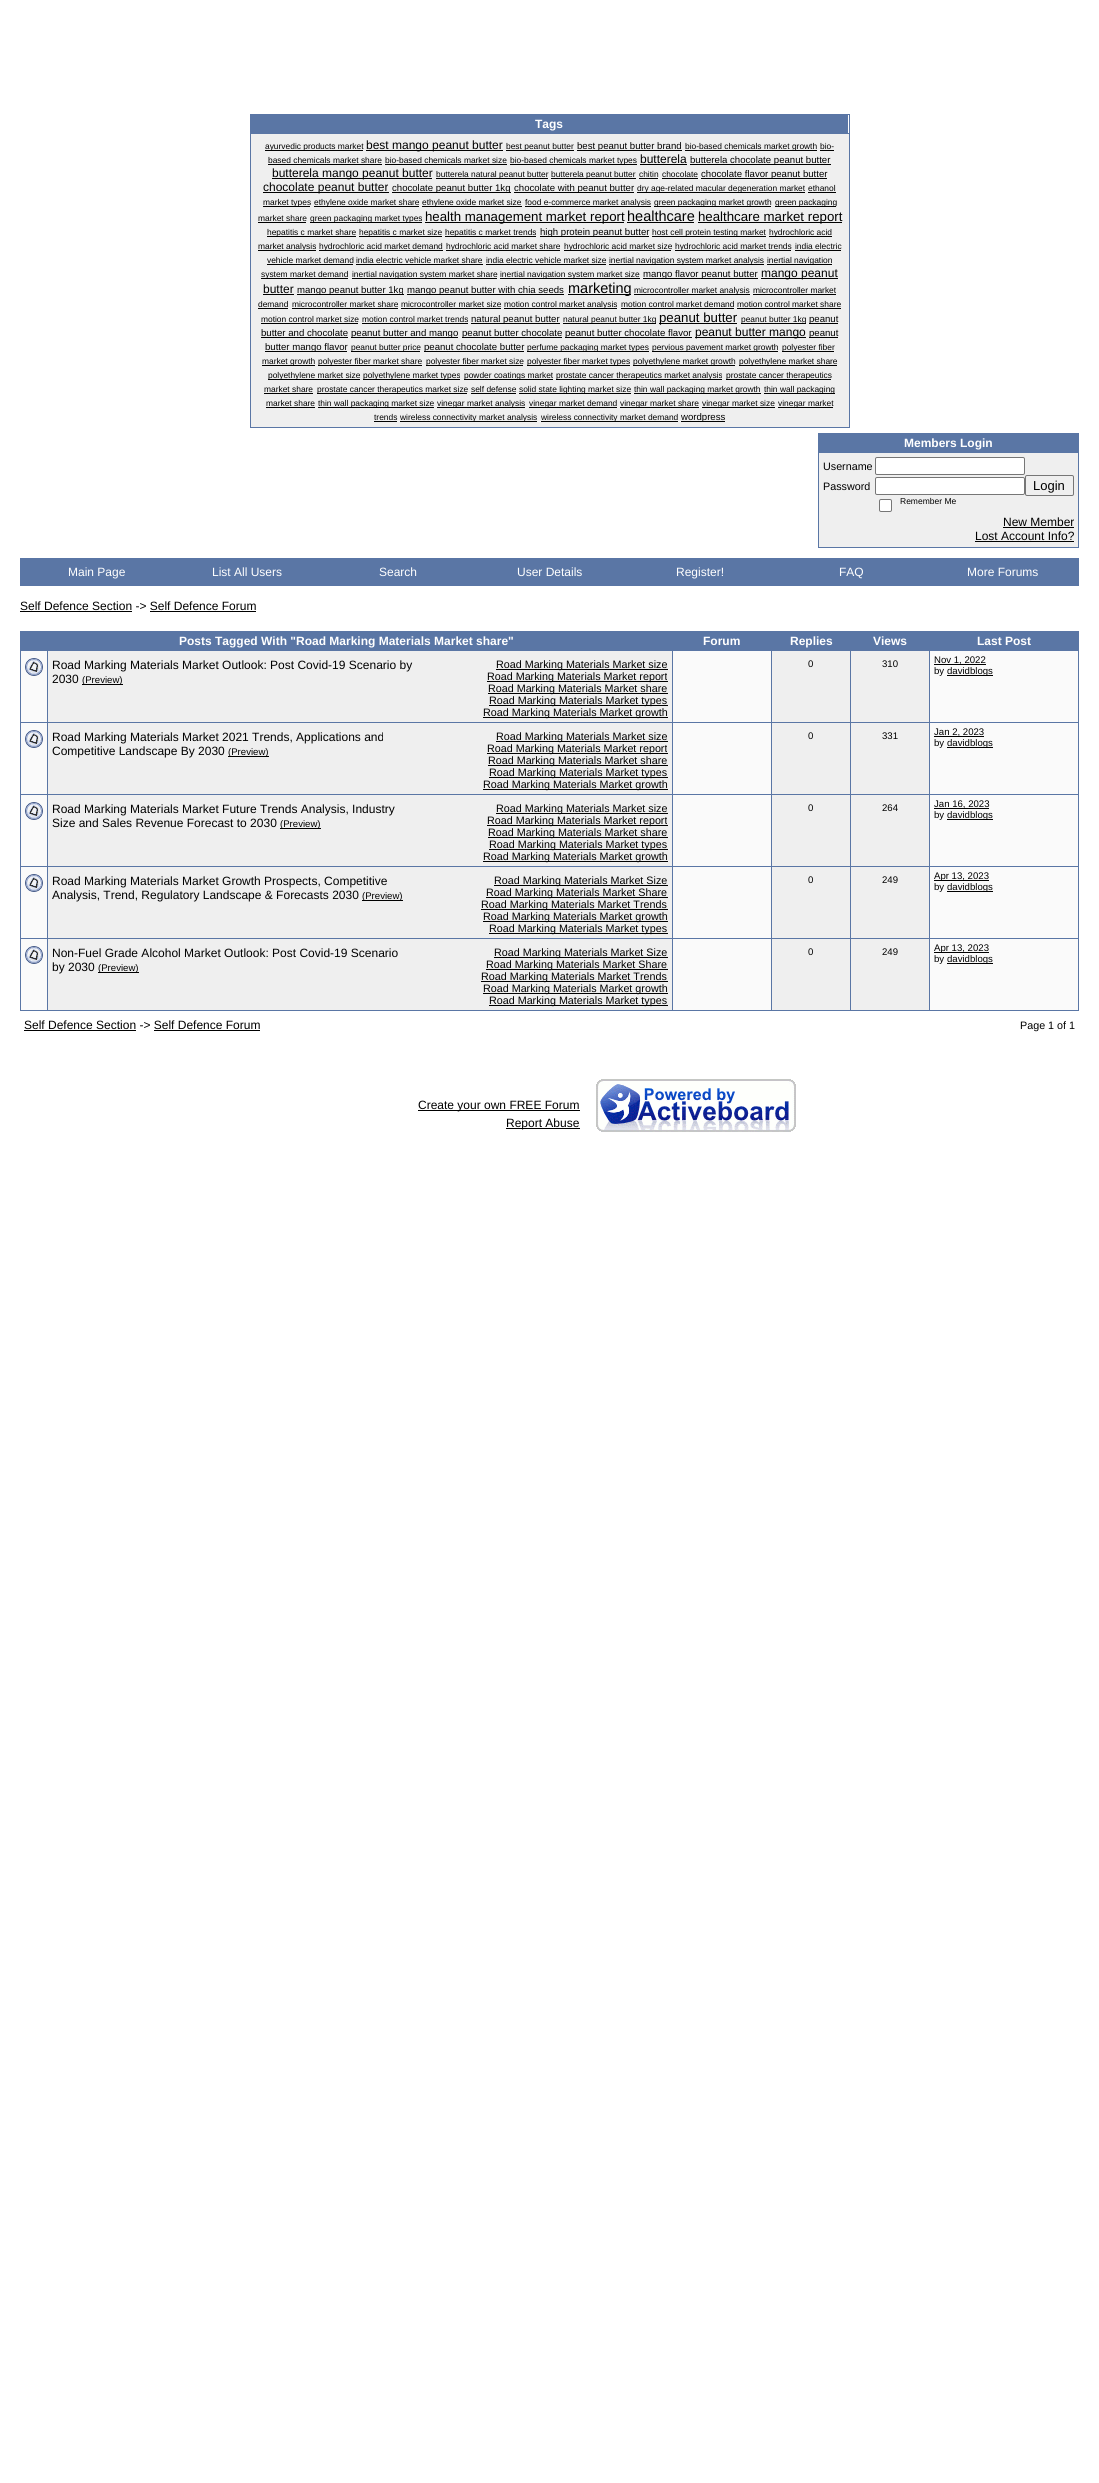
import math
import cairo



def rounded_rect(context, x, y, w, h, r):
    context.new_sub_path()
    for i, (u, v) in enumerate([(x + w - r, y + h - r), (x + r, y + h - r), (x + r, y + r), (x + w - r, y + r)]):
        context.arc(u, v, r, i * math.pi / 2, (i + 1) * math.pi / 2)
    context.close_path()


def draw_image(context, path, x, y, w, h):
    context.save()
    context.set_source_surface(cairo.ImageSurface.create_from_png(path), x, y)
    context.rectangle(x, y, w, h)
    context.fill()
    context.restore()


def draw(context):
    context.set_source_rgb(1, 1, 1)
    context.paint()
    context.set_source_rgb(90 / 255, 118 / 255, 165 / 255)
    context.rectangle(250, 114, 600, 1)
    context.fill()
    context.rectangle(849, 114, 1, 314)
    context.fill()
    context.rectangle(250, 427, 600, 1)
    context.fill()
    context.rectangle(250, 114, 1, 314)
    context.fill()
    context.rectangle(251, 115, 597, 18)
    context.fill()
    context.set_source_rgb(239 / 255, 239 / 255, 239 / 255)
    context.rectangle(251, 134, 598, 293)
    context.fill()
    context.set_source_rgb(90 / 255, 118 / 255, 165 / 255)
    context.rectangle(250, 133, 600, 1)
    context.fill()
    context.set_source_rgb(0, 0, 0)
    context.rectangle(265, 150, 98, 1)
    context.fill()
    context.rectangle(366, 150, 137, 1)
    context.fill()
    context.rectangle(506, 150, 68, 1)
    context.fill()
    context.rectangle(577, 150, 105, 1)
    context.fill()
    context.rectangle(685, 150, 132, 1)
    context.fill()
    context.rectangle(820, 150, 14, 1)
    context.fill()
    context.rectangle(268, 164, 114, 1)
    context.fill()
    context.rectangle(385, 164, 122, 1)
    context.fill()
    context.rectangle(510, 164, 127, 1)
    context.fill()
    context.rectangle(640, 164, 47, 1)
    context.fill()
    context.rectangle(690, 164, 141, 1)
    context.fill()
    context.rectangle(272, 178, 160, 1)
    context.fill()
    context.rectangle(436, 178, 112, 1)
    context.fill()
    context.rectangle(551, 178, 85, 1)
    context.fill()
    context.rectangle(639, 178, 19, 1)
    context.fill()
    context.rectangle(662, 178, 36, 1)
    context.fill()
    context.rectangle(701, 178, 126, 1)
    context.fill()
    context.rectangle(263, 192, 126, 1)
    context.fill()
    context.rectangle(392, 192, 119, 1)
    context.fill()
    context.rectangle(514, 192, 120, 1)
    context.fill()
    context.rectangle(637, 192, 168, 1)
    context.fill()
    context.rectangle(808, 192, 28, 1)
    context.fill()
    context.rectangle(263, 206, 47, 1)
    context.fill()
    context.rectangle(314, 206, 105, 1)
    context.fill()
    context.rectangle(422, 206, 100, 1)
    context.fill()
    context.rectangle(525, 206, 126, 1)
    context.fill()
    context.rectangle(654, 206, 117, 1)
    context.fill()
    context.rectangle(775, 206, 61, 1)
    context.fill()
    context.rectangle(258, 222, 48, 1)
    context.fill()
    context.rectangle(310, 222, 112, 1)
    context.fill()
    context.rectangle(425, 222, 199, 1)
    context.fill()
    context.rectangle(627, 222, 67, 1)
    context.fill()
    context.rectangle(698, 222, 144, 1)
    context.fill()
    context.rectangle(267, 236, 89, 1)
    context.fill()
    context.rectangle(359, 236, 83, 1)
    context.fill()
    context.rectangle(445, 236, 91, 1)
    context.fill()
    context.rectangle(540, 236, 109, 1)
    context.fill()
    context.rectangle(652, 236, 114, 1)
    context.fill()
    context.rectangle(769, 236, 63, 1)
    context.fill()
    context.rectangle(258, 250, 58, 1)
    context.fill()
    context.rectangle(319, 250, 124, 1)
    context.fill()
    context.rectangle(446, 250, 114, 1)
    context.fill()
    context.rectangle(564, 250, 107, 1)
    context.fill()
    context.rectangle(675, 250, 116, 1)
    context.fill()
    context.rectangle(795, 250, 46, 1)
    context.fill()
    context.rectangle(267, 264, 86, 1)
    context.fill()
    context.rectangle(356, 264, 127, 1)
    context.fill()
    context.rectangle(486, 264, 120, 1)
    context.fill()
    context.rectangle(609, 264, 155, 1)
    context.fill()
    context.rectangle(767, 264, 65, 1)
    context.fill()
    context.rectangle(261, 278, 87, 1)
    context.fill()
    context.rectangle(352, 278, 145, 1)
    context.fill()
    context.rectangle(500, 278, 140, 1)
    context.fill()
    context.rectangle(643, 278, 115, 1)
    context.fill()
    context.rectangle(761, 278, 77, 1)
    context.fill()
    context.rectangle(263, 294, 31, 1)
    context.fill()
    context.rectangle(297, 294, 107, 1)
    context.fill()
    context.rectangle(407, 294, 157, 1)
    context.fill()
    context.rectangle(568, 294, 63, 1)
    context.fill()
    context.rectangle(634, 294, 116, 1)
    context.fill()
    context.rectangle(753, 294, 83, 1)
    context.fill()
    context.rectangle(258, 308, 30, 1)
    context.fill()
    context.rectangle(292, 308, 106, 1)
    context.fill()
    context.rectangle(401, 308, 100, 1)
    context.fill()
    context.rectangle(504, 308, 113, 1)
    context.fill()
    context.rectangle(621, 308, 113, 1)
    context.fill()
    context.rectangle(737, 308, 104, 1)
    context.fill()
    context.rectangle(261, 323, 97, 1)
    context.fill()
    context.rectangle(362, 323, 106, 1)
    context.fill()
    context.rectangle(471, 323, 89, 1)
    context.fill()
    context.rectangle(563, 323, 93, 1)
    context.fill()
    context.rectangle(659, 323, 78, 1)
    context.fill()
    context.rectangle(741, 323, 65, 1)
    context.fill()
    context.rectangle(809, 323, 29, 1)
    context.fill()
    context.rectangle(261, 337, 87, 1)
    context.fill()
    context.rectangle(351, 337, 107, 1)
    context.fill()
    context.rectangle(462, 337, 100, 1)
    context.fill()
    context.rectangle(565, 337, 127, 1)
    context.fill()
    context.rectangle(695, 337, 111, 1)
    context.fill()
    context.rectangle(809, 337, 29, 1)
    context.fill()
    context.rectangle(265, 351, 82, 1)
    context.fill()
    context.rectangle(351, 351, 69, 1)
    context.fill()
    context.rectangle(424, 351, 100, 1)
    context.fill()
    context.rectangle(527, 351, 122, 1)
    context.fill()
    context.rectangle(652, 351, 126, 1)
    context.fill()
    context.rectangle(782, 351, 52, 1)
    context.fill()
    context.rectangle(262, 365, 53, 1)
    context.fill()
    context.rectangle(318, 365, 104, 1)
    context.fill()
    context.rectangle(426, 365, 97, 1)
    context.fill()
    context.rectangle(527, 365, 103, 1)
    context.fill()
    context.rectangle(633, 365, 102, 1)
    context.fill()
    context.rectangle(739, 365, 98, 1)
    context.fill()
    context.rectangle(268, 379, 92, 1)
    context.fill()
    context.rectangle(363, 379, 97, 1)
    context.fill()
    context.rectangle(464, 379, 89, 1)
    context.fill()
    context.rectangle(556, 379, 166, 1)
    context.fill()
    context.rectangle(726, 379, 105, 1)
    context.fill()
    context.rectangle(264, 393, 49, 1)
    context.fill()
    context.rectangle(317, 393, 150, 1)
    context.fill()
    context.rectangle(471, 393, 45, 1)
    context.fill()
    context.rectangle(519, 393, 112, 1)
    context.fill()
    context.rectangle(634, 393, 127, 1)
    context.fill()
    context.rectangle(764, 393, 71, 1)
    context.fill()
    context.rectangle(266, 407, 49, 1)
    context.fill()
    context.rectangle(318, 407, 116, 1)
    context.fill()
    context.rectangle(437, 407, 88, 1)
    context.fill()
    context.rectangle(529, 407, 88, 1)
    context.fill()
    context.rectangle(620, 407, 79, 1)
    context.fill()
    context.rectangle(702, 407, 73, 1)
    context.fill()
    context.rectangle(778, 407, 55, 1)
    context.fill()
    context.rectangle(374, 421, 23, 1)
    context.fill()
    context.rectangle(400, 421, 137, 1)
    context.fill()
    context.rectangle(541, 421, 137, 1)
    context.fill()
    context.rectangle(681, 421, 44, 1)
    context.fill()
    context.set_source_rgb(90 / 255, 118 / 255, 165 / 255)
    context.rectangle(818, 433, 261, 1)
    context.fill()
    context.rectangle(1078, 433, 1, 115)
    context.fill()
    context.rectangle(818, 547, 261, 1)
    context.fill()
    context.rectangle(818, 433, 1, 115)
    context.fill()
    context.rectangle(819, 434, 259, 18)
    context.fill()
    context.rectangle(818, 452, 261, 1)
    context.fill()
    context.set_source_rgb(239 / 255, 239 / 255, 239 / 255)
    context.rectangle(819, 453, 259, 94)
    context.fill()
    context.set_source_rgb(1, 1, 1)
    rounded_rect(context, 875.5, 457.5, 149, 17, 1.5)
    context.fill_preserve()
    context.set_source_rgb(118 / 255, 118 / 255, 118 / 255)
    context.set_line_width(1)
    context.stroke()
    context.set_source_rgb(1, 1, 1)
    rounded_rect(context, 875.5, 477.5, 149, 17, 1.5)
    context.fill_preserve()
    context.set_source_rgb(118 / 255, 118 / 255, 118 / 255)
    context.stroke()
    rounded_rect(context, 1025.5, 475.5, 48, 20, 1.5)
    context.stroke()
    context.set_source_rgb(1, 1, 1)
    rounded_rect(context, 879.5, 499.5, 12, 12, 1.5)
    context.fill_preserve()
    context.set_source_rgb(118 / 255, 118 / 255, 118 / 255)
    context.stroke()
    context.set_source_rgb(0, 0, 0)
    context.rectangle(1003, 527, 71, 1)
    context.fill()
    context.rectangle(975, 541, 99, 1)
    context.fill()
    context.rectangle(20.5, 558.5, 1058, 27)
    context.set_source_rgb(90 / 255, 118 / 255, 165 / 255)
    context.stroke()
    context.rectangle(21, 559, 1057, 26)
    context.fill()
    context.set_source_rgb(0, 0, 0)
    context.rectangle(20, 611, 112, 1)
    context.fill()
    context.rectangle(150, 611, 106, 1)
    context.fill()
    context.set_source_rgb(90 / 255, 118 / 255, 165 / 255)
    context.rectangle(20, 631, 1059, 1)
    context.fill()
    context.rectangle(1078, 631, 1, 380)
    context.fill()
    context.rectangle(20, 1010, 1059, 1)
    context.fill()
    context.rectangle(20, 631, 1, 380)
    context.fill()
    context.rectangle(21, 632, 651, 18)
    context.fill()
    context.rectangle(929, 650, 150, 1)
    context.fill()
    context.rectangle(929, 722, 150, 1)
    context.fill()
    context.rectangle(929, 794, 150, 1)
    context.fill()
    context.rectangle(929, 866, 150, 1)
    context.fill()
    context.rectangle(929, 938, 150, 1)
    context.fill()
    context.rectangle(929, 938, 1, 73)
    context.fill()
    context.rectangle(850, 938, 80, 1)
    context.fill()
    context.rectangle(929, 866, 1, 73)
    context.fill()
    context.rectangle(850, 866, 80, 1)
    context.fill()
    context.rectangle(929, 794, 1, 73)
    context.fill()
    context.rectangle(850, 794, 80, 1)
    context.fill()
    context.rectangle(929, 722, 1, 73)
    context.fill()
    context.rectangle(850, 722, 80, 1)
    context.fill()
    context.rectangle(929, 650, 1, 73)
    context.fill()
    context.rectangle(850, 650, 80, 1)
    context.fill()
    context.rectangle(850, 938, 1, 73)
    context.fill()
    context.rectangle(771, 938, 80, 1)
    context.fill()
    context.rectangle(850, 866, 1, 73)
    context.fill()
    context.rectangle(771, 866, 80, 1)
    context.fill()
    context.rectangle(850, 794, 1, 73)
    context.fill()
    context.rectangle(771, 794, 80, 1)
    context.fill()
    context.rectangle(850, 722, 1, 73)
    context.fill()
    context.rectangle(771, 722, 80, 1)
    context.fill()
    context.rectangle(850, 650, 1, 73)
    context.fill()
    context.rectangle(771, 650, 80, 1)
    context.fill()
    context.rectangle(771, 938, 1, 73)
    context.fill()
    context.rectangle(672, 938, 100, 1)
    context.fill()
    context.rectangle(771, 866, 1, 73)
    context.fill()
    context.rectangle(672, 866, 100, 1)
    context.fill()
    context.rectangle(771, 794, 1, 73)
    context.fill()
    context.rectangle(672, 794, 100, 1)
    context.fill()
    context.rectangle(771, 722, 1, 73)
    context.fill()
    context.rectangle(672, 722, 100, 1)
    context.fill()
    context.rectangle(771, 650, 1, 73)
    context.fill()
    context.rectangle(672, 650, 100, 1)
    context.fill()
    context.rectangle(672, 938, 1, 73)
    context.fill()
    context.rectangle(47, 938, 626, 1)
    context.fill()
    context.rectangle(672, 866, 1, 73)
    context.fill()
    context.rectangle(47, 866, 626, 1)
    context.fill()
    context.rectangle(672, 794, 1, 73)
    context.fill()
    context.rectangle(47, 794, 626, 1)
    context.fill()
    context.rectangle(672, 722, 1, 73)
    context.fill()
    context.rectangle(47, 722, 626, 1)
    context.fill()
    context.rectangle(672, 650, 1, 73)
    context.fill()
    context.rectangle(47, 650, 626, 1)
    context.fill()
    context.rectangle(672, 631, 1, 20)
    context.fill()
    context.rectangle(673, 632, 98, 18)
    context.fill()
    context.rectangle(771, 631, 1, 20)
    context.fill()
    context.rectangle(772, 632, 78, 18)
    context.fill()
    context.rectangle(850, 631, 1, 20)
    context.fill()
    context.rectangle(851, 632, 78, 18)
    context.fill()
    context.rectangle(929, 631, 1, 20)
    context.fill()
    context.rectangle(930, 632, 148, 18)
    context.fill()
    context.set_source_rgb(250 / 255, 250 / 255, 250 / 255)
    context.rectangle(21, 651, 26, 71)
    context.fill()
    context.set_source_rgb(90 / 255, 118 / 255, 165 / 255)
    context.rectangle(47, 938, 1, 73)
    context.fill()
    context.rectangle(20, 938, 28, 1)
    context.fill()
    context.rectangle(47, 866, 1, 73)
    context.fill()
    context.rectangle(20, 866, 28, 1)
    context.fill()
    context.rectangle(47, 794, 1, 73)
    context.fill()
    context.rectangle(20, 794, 28, 1)
    context.fill()
    context.rectangle(47, 722, 1, 73)
    context.fill()
    context.rectangle(20, 722, 28, 1)
    context.fill()
    context.rectangle(47, 650, 1, 73)
    context.fill()
    context.rectangle(20, 650, 28, 1)
    context.fill()
    draw_image(context, "images/1.png", 25, 658, 18, 18)
    context.set_source_rgb(239 / 255, 239 / 255, 239 / 255)
    context.rectangle(48, 651, 624, 71)
    context.fill()
    context.set_source_rgb(0, 0, 0)
    context.rectangle(496, 669, 172, 1)
    context.fill()
    context.rectangle(487, 681, 181, 1)
    context.fill()
    context.rectangle(488, 693, 180, 1)
    context.fill()
    context.rectangle(489, 705, 179, 1)
    context.fill()
    context.rectangle(483, 717, 185, 1)
    context.fill()
    context.rectangle(82, 684, 41, 1)
    context.fill()
    context.set_source_rgb(250 / 255, 250 / 255, 250 / 255)
    context.rectangle(673, 651, 98, 71)
    context.fill()
    context.set_source_rgb(239 / 255, 239 / 255, 239 / 255)
    context.rectangle(772, 651, 78, 71)
    context.fill()
    context.rectangle(851, 651, 78, 71)
    context.fill()
    context.set_source_rgb(250 / 255, 250 / 255, 250 / 255)
    context.rectangle(930, 651, 148, 71)
    context.fill()
    context.set_source_rgb(0, 0, 0)
    context.rectangle(934, 664, 52, 1)
    context.fill()
    context.rectangle(947, 675, 46, 1)
    context.fill()
    context.set_source_rgb(250 / 255, 250 / 255, 250 / 255)
    context.rectangle(21, 723, 26, 71)
    context.fill()
    draw_image(context, "images/1.png", 25, 730, 18, 18)
    context.set_source_rgb(239 / 255, 239 / 255, 239 / 255)
    context.rectangle(48, 723, 624, 71)
    context.fill()
    context.set_source_rgb(0, 0, 0)
    context.rectangle(496, 741, 172, 1)
    context.fill()
    context.rectangle(487, 753, 181, 1)
    context.fill()
    context.rectangle(488, 765, 180, 1)
    context.fill()
    context.rectangle(489, 777, 179, 1)
    context.fill()
    context.rectangle(483, 789, 185, 1)
    context.fill()
    context.rectangle(228, 756, 41, 1)
    context.fill()
    context.set_source_rgb(250 / 255, 250 / 255, 250 / 255)
    context.rectangle(673, 723, 98, 71)
    context.fill()
    context.set_source_rgb(239 / 255, 239 / 255, 239 / 255)
    context.rectangle(772, 723, 78, 71)
    context.fill()
    context.rectangle(851, 723, 78, 71)
    context.fill()
    context.set_source_rgb(250 / 255, 250 / 255, 250 / 255)
    context.rectangle(930, 723, 148, 71)
    context.fill()
    context.set_source_rgb(0, 0, 0)
    context.rectangle(934, 736, 50, 1)
    context.fill()
    context.rectangle(947, 747, 46, 1)
    context.fill()
    context.set_source_rgb(250 / 255, 250 / 255, 250 / 255)
    context.rectangle(21, 795, 26, 71)
    context.fill()
    draw_image(context, "images/1.png", 25, 802, 18, 18)
    context.set_source_rgb(239 / 255, 239 / 255, 239 / 255)
    context.rectangle(48, 795, 624, 71)
    context.fill()
    context.set_source_rgb(0, 0, 0)
    context.rectangle(496, 813, 172, 1)
    context.fill()
    context.rectangle(487, 825, 181, 1)
    context.fill()
    context.rectangle(488, 837, 180, 1)
    context.fill()
    context.rectangle(489, 849, 179, 1)
    context.fill()
    context.rectangle(483, 861, 185, 1)
    context.fill()
    context.rectangle(280, 828, 41, 1)
    context.fill()
    context.set_source_rgb(250 / 255, 250 / 255, 250 / 255)
    context.rectangle(673, 795, 98, 71)
    context.fill()
    context.set_source_rgb(239 / 255, 239 / 255, 239 / 255)
    context.rectangle(772, 795, 78, 71)
    context.fill()
    context.rectangle(851, 795, 78, 71)
    context.fill()
    context.set_source_rgb(250 / 255, 250 / 255, 250 / 255)
    context.rectangle(930, 795, 148, 71)
    context.fill()
    context.set_source_rgb(0, 0, 0)
    context.rectangle(934, 808, 55, 1)
    context.fill()
    context.rectangle(947, 819, 46, 1)
    context.fill()
    context.set_source_rgb(250 / 255, 250 / 255, 250 / 255)
    context.rectangle(21, 867, 26, 71)
    context.fill()
    draw_image(context, "images/1.png", 25, 874, 18, 18)
    context.set_source_rgb(239 / 255, 239 / 255, 239 / 255)
    context.rectangle(48, 867, 624, 71)
    context.fill()
    context.set_source_rgb(0, 0, 0)
    context.rectangle(494, 885, 174, 1)
    context.fill()
    context.rectangle(486, 897, 182, 1)
    context.fill()
    context.rectangle(481, 909, 187, 1)
    context.fill()
    context.rectangle(483, 921, 185, 1)
    context.fill()
    context.rectangle(489, 933, 179, 1)
    context.fill()
    context.rectangle(362, 900, 41, 1)
    context.fill()
    context.set_source_rgb(250 / 255, 250 / 255, 250 / 255)
    context.rectangle(673, 867, 98, 71)
    context.fill()
    context.set_source_rgb(239 / 255, 239 / 255, 239 / 255)
    context.rectangle(772, 867, 78, 71)
    context.fill()
    context.rectangle(851, 867, 78, 71)
    context.fill()
    context.set_source_rgb(250 / 255, 250 / 255, 250 / 255)
    context.rectangle(930, 867, 148, 71)
    context.fill()
    context.set_source_rgb(0, 0, 0)
    context.rectangle(934, 880, 55, 1)
    context.fill()
    context.rectangle(947, 891, 46, 1)
    context.fill()
    context.set_source_rgb(250 / 255, 250 / 255, 250 / 255)
    context.rectangle(21, 939, 26, 71)
    context.fill()
    draw_image(context, "images/1.png", 25, 946, 18, 18)
    context.set_source_rgb(239 / 255, 239 / 255, 239 / 255)
    context.rectangle(48, 939, 624, 71)
    context.fill()
    context.set_source_rgb(0, 0, 0)
    context.rectangle(494, 957, 174, 1)
    context.fill()
    context.rectangle(486, 969, 182, 1)
    context.fill()
    context.rectangle(481, 981, 187, 1)
    context.fill()
    context.rectangle(483, 993, 185, 1)
    context.fill()
    context.rectangle(489, 1005, 179, 1)
    context.fill()
    context.rectangle(98, 972, 41, 1)
    context.fill()
    context.set_source_rgb(250 / 255, 250 / 255, 250 / 255)
    context.rectangle(673, 939, 98, 71)
    context.fill()
    context.set_source_rgb(239 / 255, 239 / 255, 239 / 255)
    context.rectangle(772, 939, 78, 71)
    context.fill()
    context.rectangle(851, 939, 78, 71)
    context.fill()
    context.set_source_rgb(250 / 255, 250 / 255, 250 / 255)
    context.rectangle(930, 939, 148, 71)
    context.fill()
    context.set_source_rgb(0, 0, 0)
    context.rectangle(934, 952, 55, 1)
    context.fill()
    context.rectangle(947, 963, 46, 1)
    context.fill()
    context.rectangle(24, 1030, 112, 1)
    context.fill()
    context.rectangle(154, 1030, 106, 1)
    context.fill()
    context.rectangle(418, 1110, 162, 1)
    context.fill()
    context.rectangle(506, 1128, 74, 1)
    context.fill()
    draw_image(context, "images/2.png", 596, 1079, 200, 53)
    context.select_font_face("Liberation Sans", cairo.FontSlant.NORMAL, cairo.FontWeight.BOLD)
    context.set_font_size(12)
    context.set_source_rgb(1, 1, 1)
    context.move_to(535, 128)
    context.show_text("Tags")
    context.select_font_face("Liberation Sans")
    context.set_font_size(8.4)
    context.set_source_rgb(0, 0, 0)
    context.move_to(265, 149)
    context.show_text("ayurvedic products market")
    context.set_font_size(12)
    context.move_to(366, 149)
    context.show_text("best mango peanut butter")
    context.set_font_size(8.4)
    context.move_to(506, 149)
    context.show_text("best peanut butter")
    context.set_font_size(9.6)
    context.move_to(577, 149)
    context.show_text("best peanut butter brand")
    context.set_font_size(8.4)
    context.move_to(685, 149)
    context.show_text("bio-based chemicals market growth")
    context.move_to(820, 149)
    context.show_text("bio-")
    context.move_to(268, 163)
    context.show_text("based chemicals market share")
    context.move_to(385, 163)
    context.show_text("bio-based chemicals market size")
    context.move_to(510, 163)
    context.show_text("bio-based chemicals market types")
    context.set_font_size(12)
    context.move_to(640, 163)
    context.show_text("butterela")
    context.set_font_size(9.6)
    context.move_to(690, 163)
    context.show_text("butterela chocolate peanut butter")
    context.set_font_size(12)
    context.move_to(272, 177)
    context.show_text("butterela mango peanut butter")
    context.set_font_size(8.4)
    context.move_to(436, 177)
    context.show_text("butterela natural peanut butter")
    context.move_to(551, 177)
    context.show_text("butterela peanut butter")
    context.move_to(639, 177)
    context.show_text("chitin")
    context.move_to(662, 177)
    context.show_text("chocolate")
    context.set_font_size(9.6)
    context.move_to(701, 177)
    context.show_text("chocolate flavor peanut butter")
    context.set_font_size(12)
    context.move_to(263, 191)
    context.show_text("chocolate peanut butter")
    context.set_font_size(9.6)
    context.move_to(392, 191)
    context.show_text("chocolate peanut butter 1kg")
    context.move_to(514, 191)
    context.show_text("chocolate with peanut butter")
    context.set_font_size(8.4)
    context.move_to(637, 191)
    context.show_text("dry age-related macular degeneration market")
    context.move_to(808, 191)
    context.show_text("ethanol")
    context.move_to(263, 205)
    context.show_text("market types")
    context.move_to(314, 205)
    context.show_text("ethylene oxide market share")
    context.move_to(422, 205)
    context.show_text("ethylene oxide market size")
    context.move_to(525, 205)
    context.show_text("food e-commerce market analysis")
    context.move_to(654, 205)
    context.show_text("green packaging market growth")
    context.move_to(775, 205)
    context.show_text("green packaging")
    context.move_to(258, 221)
    context.show_text("market share")
    context.move_to(310, 221)
    context.show_text("green packaging market types")
    context.set_font_size(13.25)
    context.move_to(425, 221)
    context.show_text("health management market report")
    context.set_font_size(14.5)
    context.move_to(627, 221)
    context.show_text("healthcare")
    context.set_font_size(13.25)
    context.move_to(698, 221)
    context.show_text("healthcare market report")
    context.set_font_size(8.4)
    context.move_to(267, 235)
    context.show_text("hepatitis c market share")
    context.move_to(359, 235)
    context.show_text("hepatitis c market size")
    context.move_to(445, 235)
    context.show_text("hepatitis c market trends")
    context.set_font_size(9.6)
    context.move_to(540, 235)
    context.show_text("high protein peanut butter")
    context.set_font_size(8.4)
    context.move_to(652, 235)
    context.show_text("host cell protein testing market")
    context.move_to(769, 235)
    context.show_text("hydrochloric acid")
    context.move_to(258, 249)
    context.show_text("market analysis")
    context.move_to(319, 249)
    context.show_text("hydrochloric acid market demand")
    context.move_to(446, 249)
    context.show_text("hydrochloric acid market share")
    context.move_to(564, 249)
    context.show_text("hydrochloric acid market size")
    context.move_to(675, 249)
    context.show_text("hydrochloric acid market trends")
    context.move_to(795, 249)
    context.show_text("india electric")
    context.move_to(267, 263)
    context.show_text("vehicle market demand")
    context.move_to(356, 263)
    context.show_text("india electric vehicle market share")
    context.move_to(486, 263)
    context.show_text("india electric vehicle market size")
    context.move_to(609, 263)
    context.show_text("inertial navigation system market analysis")
    context.move_to(767, 263)
    context.show_text("inertial navigation")
    context.move_to(261, 277)
    context.show_text("system market demand")
    context.move_to(352, 277)
    context.show_text("inertial navigation system market share")
    context.move_to(500, 277)
    context.show_text("inertial navigation system market size")
    context.set_font_size(9.6)
    context.move_to(643, 277)
    context.show_text("mango flavor peanut butter")
    context.set_font_size(12)
    context.move_to(761, 277)
    context.show_text("mango peanut")
    context.move_to(263, 293)
    context.show_text("butter")
    context.set_font_size(9.6)
    context.move_to(297, 293)
    context.show_text("mango peanut butter 1kg")
    context.move_to(407, 293)
    context.show_text("mango peanut butter with chia seeds")
    context.set_font_size(14.5)
    context.move_to(568, 293)
    context.show_text("marketing")
    context.set_font_size(8.4)
    context.move_to(634, 293)
    context.show_text("microcontroller market analysis")
    context.move_to(753, 293)
    context.show_text("microcontroller market")
    context.move_to(258, 307)
    context.show_text("demand")
    context.move_to(292, 307)
    context.show_text("microcontroller market share")
    context.move_to(401, 307)
    context.show_text("microcontroller market size")
    context.move_to(504, 307)
    context.show_text("motion control market analysis")
    context.move_to(621, 307)
    context.show_text("motion control market demand")
    context.move_to(737, 307)
    context.show_text("motion control market share")
    context.move_to(261, 322)
    context.show_text("motion control market size")
    context.move_to(362, 322)
    context.show_text("motion control market trends")
    context.set_font_size(9.6)
    context.move_to(471, 322)
    context.show_text("natural peanut butter")
    context.set_font_size(8.4)
    context.move_to(563, 322)
    context.show_text("natural peanut butter 1kg")
    context.set_font_size(13.25)
    context.move_to(659, 322)
    context.show_text("peanut butter")
    context.set_font_size(8.4)
    context.move_to(741, 322)
    context.show_text("peanut butter 1kg")
    context.set_font_size(9.6)
    context.move_to(809, 322)
    context.show_text("peanut")
    context.move_to(261, 336)
    context.show_text("butter and chocolate")
    context.move_to(351, 336)
    context.show_text("peanut butter and mango")
    context.move_to(462, 336)
    context.show_text("peanut butter chocolate")
    context.move_to(565, 336)
    context.show_text("peanut butter chocolate flavor")
    context.set_font_size(12)
    context.move_to(695, 336)
    context.show_text("peanut butter mango")
    context.set_font_size(9.6)
    context.move_to(809, 336)
    context.show_text("peanut")
    context.move_to(265, 350)
    context.show_text("butter mango flavor")
    context.set_font_size(8.4)
    context.move_to(351, 350)
    context.show_text("peanut butter price")
    context.set_font_size(9.6)
    context.move_to(424, 350)
    context.show_text("peanut chocolate butter")
    context.set_font_size(8.4)
    context.move_to(527, 350)
    context.show_text("perfume packaging market types")
    context.move_to(652, 350)
    context.show_text("pervious pavement market growth")
    context.move_to(782, 350)
    context.show_text("polyester fiber")
    context.move_to(262, 364)
    context.show_text("market growth")
    context.move_to(318, 364)
    context.show_text("polyester fiber market share")
    context.move_to(426, 364)
    context.show_text("polyester fiber market size")
    context.move_to(527, 364)
    context.show_text("polyester fiber market types")
    context.move_to(633, 364)
    context.show_text("polyethylene market growth")
    context.move_to(739, 364)
    context.show_text("polyethylene market share")
    context.move_to(268, 378)
    context.show_text("polyethylene market size")
    context.move_to(363, 378)
    context.show_text("polyethylene market types")
    context.move_to(464, 378)
    context.show_text("powder coatings market")
    context.move_to(556, 378)
    context.show_text("prostate cancer therapeutics market analysis")
    context.move_to(726, 378)
    context.show_text("prostate cancer therapeutics")
    context.move_to(264, 392)
    context.show_text("market share")
    context.move_to(317, 392)
    context.show_text("prostate cancer therapeutics market size")
    context.move_to(471, 392)
    context.show_text("self defense")
    context.move_to(519, 392)
    context.show_text("solid state lighting market size")
    context.move_to(634, 392)
    context.show_text("thin wall packaging market growth")
    context.move_to(764, 392)
    context.show_text("thin wall packaging")
    context.move_to(266, 406)
    context.show_text("market share")
    context.move_to(318, 406)
    context.show_text("thin wall packaging market size")
    context.move_to(437, 406)
    context.show_text("vinegar market analysis")
    context.move_to(529, 406)
    context.show_text("vinegar market demand")
    context.move_to(620, 406)
    context.show_text("vinegar market share")
    context.move_to(702, 406)
    context.show_text("vinegar market size")
    context.move_to(778, 406)
    context.show_text("vinegar market")
    context.move_to(374, 420)
    context.show_text("trends")
    context.move_to(400, 420)
    context.show_text("wireless connectivity market analysis")
    context.move_to(541, 420)
    context.show_text("wireless connectivity market demand")
    context.set_font_size(9.6)
    context.move_to(681, 420)
    context.show_text("wordpress")
    context.select_font_face("Liberation Sans", cairo.FontSlant.NORMAL, cairo.FontWeight.BOLD)
    context.set_font_size(12)
    context.set_source_rgb(1, 1, 1)
    context.move_to(904, 447)
    context.show_text("Members Login")
    context.select_font_face("Liberation Sans")
    context.set_font_size(10.75)
    context.set_source_rgb(0, 0, 0)
    context.move_to(823, 470)
    context.show_text("Username")
    context.move_to(823, 490)
    context.show_text("Password")
    context.set_font_size(13)
    context.move_to(1033, 490)
    context.show_text("Login")
    context.set_font_size(8.5)
    context.move_to(900, 504)
    context.show_text("Remember Me")
    context.set_font_size(12)
    context.move_to(1003, 526)
    context.show_text("New Member")
    context.move_to(975, 540)
    context.show_text("Lost Account Info?")
    context.set_source_rgb(1, 1, 1)
    context.move_to(68, 576)
    context.show_text("Main Page")
    context.move_to(212, 576)
    context.show_text("List All Users")
    context.move_to(379, 576)
    context.show_text("Search")
    context.move_to(517, 576)
    context.show_text("User Details")
    context.move_to(676, 576)
    context.show_text("Register!")
    context.move_to(839, 576)
    context.show_text("FAQ")
    context.move_to(967, 576)
    context.show_text("More Forums")
    context.set_source_rgb(0, 0, 0)
    context.move_to(20, 610)
    context.show_text("Self Defence Section -> Self Defence Forum")
    context.select_font_face("Liberation Sans", cairo.FontSlant.NORMAL, cairo.FontWeight.BOLD)
    context.set_source_rgb(1, 1, 1)
    context.move_to(179, 645)
    context.show_text("Posts Tagged With \"Road Marking Materials Market share\"")
    context.move_to(703, 645)
    context.show_text("Forum")
    context.move_to(790, 645)
    context.show_text("Replies")
    context.move_to(873, 645)
    context.show_text("Views")
    context.move_to(977, 645)
    context.show_text("Last Post")
    context.select_font_face("Liberation Sans")
    context.set_source_rgb(0, 0, 0)
    context.move_to(52, 669)
    context.show_text("Road Marking Materials Market Outlook: Post Covid-19 Scenario by")
    context.set_font_size(10.75)
    context.move_to(496, 668)
    context.show_text("Road Marking Materials Market size")
    context.move_to(487, 680)
    context.show_text("Road Marking Materials Market report")
    context.move_to(488, 692)
    context.show_text("Road Marking Materials Market share")
    context.move_to(489, 704)
    context.show_text("Road Marking Materials Market types")
    context.move_to(483, 716)
    context.show_text("Road Marking Materials Market growth")
    context.set_font_size(12)
    context.move_to(52, 683)
    context.show_text("2030")
    context.set_font_size(9.6)
    context.move_to(82, 683)
    context.show_text("(Preview)")
    context.move_to(808, 667)
    context.show_text("0")
    context.move_to(882, 667)
    context.show_text("310")
    context.move_to(934, 663)
    context.show_text("Nov 1, 2022")
    context.move_to(934, 674)
    context.show_text("by")
    context.move_to(947, 674)
    context.show_text("davidblogs")
    context.set_font_size(12)
    context.move_to(52, 741)
    context.show_text("Road Marking Materials Market 2021 Trends, Applications and")
    context.set_font_size(10.75)
    context.move_to(496, 740)
    context.show_text("Road Marking Materials Market size")
    context.move_to(487, 752)
    context.show_text("Road Marking Materials Market report")
    context.move_to(488, 764)
    context.show_text("Road Marking Materials Market share")
    context.move_to(489, 776)
    context.show_text("Road Marking Materials Market types")
    context.move_to(483, 788)
    context.show_text("Road Marking Materials Market growth")
    context.set_font_size(12)
    context.move_to(52, 755)
    context.show_text("Competitive Landscape By 2030")
    context.set_font_size(9.6)
    context.move_to(228, 755)
    context.show_text("(Preview)")
    context.move_to(808, 739)
    context.show_text("0")
    context.move_to(882, 739)
    context.show_text("331")
    context.move_to(934, 735)
    context.show_text("Jan 2, 2023")
    context.move_to(934, 746)
    context.show_text("by")
    context.move_to(947, 746)
    context.show_text("davidblogs")
    context.set_font_size(12)
    context.move_to(52, 813)
    context.show_text("Road Marking Materials Market Future Trends Analysis, Industry")
    context.set_font_size(10.75)
    context.move_to(496, 812)
    context.show_text("Road Marking Materials Market size")
    context.move_to(487, 824)
    context.show_text("Road Marking Materials Market report")
    context.move_to(488, 836)
    context.show_text("Road Marking Materials Market share")
    context.move_to(489, 848)
    context.show_text("Road Marking Materials Market types")
    context.move_to(483, 860)
    context.show_text("Road Marking Materials Market growth")
    context.set_font_size(12)
    context.move_to(52, 827)
    context.show_text("Size and Sales Revenue Forecast to 2030")
    context.set_font_size(9.6)
    context.move_to(280, 827)
    context.show_text("(Preview)")
    context.move_to(808, 811)
    context.show_text("0")
    context.move_to(882, 811)
    context.show_text("264")
    context.move_to(934, 807)
    context.show_text("Jan 16, 2023")
    context.move_to(934, 818)
    context.show_text("by")
    context.move_to(947, 818)
    context.show_text("davidblogs")
    context.set_font_size(12)
    context.move_to(52, 885)
    context.show_text("Road Marking Materials Market Growth Prospects, Competitive")
    context.set_font_size(10.75)
    context.move_to(494, 884)
    context.show_text("Road Marking Materials Market Size")
    context.move_to(486, 896)
    context.show_text("Road Marking Materials Market Share")
    context.move_to(481, 908)
    context.show_text("Road Marking Materials Market Trends")
    context.move_to(483, 920)
    context.show_text("Road Marking Materials Market growth")
    context.move_to(489, 932)
    context.show_text("Road Marking Materials Market types")
    context.set_font_size(12)
    context.move_to(52, 899)
    context.show_text("Analysis, Trend, Regulatory Landscape & Forecasts 2030")
    context.set_font_size(9.6)
    context.move_to(362, 899)
    context.show_text("(Preview)")
    context.move_to(808, 883)
    context.show_text("0")
    context.move_to(882, 883)
    context.show_text("249")
    context.move_to(934, 879)
    context.show_text("Apr 13, 2023")
    context.move_to(934, 890)
    context.show_text("by")
    context.move_to(947, 890)
    context.show_text("davidblogs")
    context.set_font_size(12)
    context.move_to(52, 957)
    context.show_text("Non-Fuel Grade Alcohol Market Outlook: Post Covid-19 Scenario")
    context.set_font_size(10.75)
    context.move_to(494, 956)
    context.show_text("Road Marking Materials Market Size")
    context.move_to(486, 968)
    context.show_text("Road Marking Materials Market Share")
    context.move_to(481, 980)
    context.show_text("Road Marking Materials Market Trends")
    context.move_to(483, 992)
    context.show_text("Road Marking Materials Market growth")
    context.move_to(489, 1004)
    context.show_text("Road Marking Materials Market types")
    context.set_font_size(12)
    context.move_to(52, 971)
    context.show_text("by 2030")
    context.set_font_size(9.6)
    context.move_to(98, 971)
    context.show_text("(Preview)")
    context.move_to(808, 955)
    context.show_text("0")
    context.move_to(882, 955)
    context.show_text("249")
    context.move_to(934, 951)
    context.show_text("Apr 13, 2023")
    context.move_to(934, 962)
    context.show_text("by")
    context.move_to(947, 962)
    context.show_text("davidblogs")
    context.set_font_size(12)
    context.move_to(24, 1029)
    context.show_text("Self Defence Section -> Self Defence Forum")
    context.set_font_size(10.75)
    context.move_to(1020, 1029)
    context.show_text("Page 1 of 1")
    context.set_font_size(12)
    context.move_to(418, 1109)
    context.show_text("Create your own FREE Forum")
    context.move_to(506, 1127)
    context.show_text("Report Abuse")


surface = cairo.ImageSurface(cairo.Format.RGB24, 1099, 2483)
context = cairo.Context(surface)
options = cairo.FontOptions()
options.set_hint_metrics(cairo.HintMetrics.OFF)
options.set_hint_style(cairo.HintStyle.NONE)
context.set_font_options(options)
context.set_miter_limit(4)
draw(context)
surface.write_to_png("out.png")
